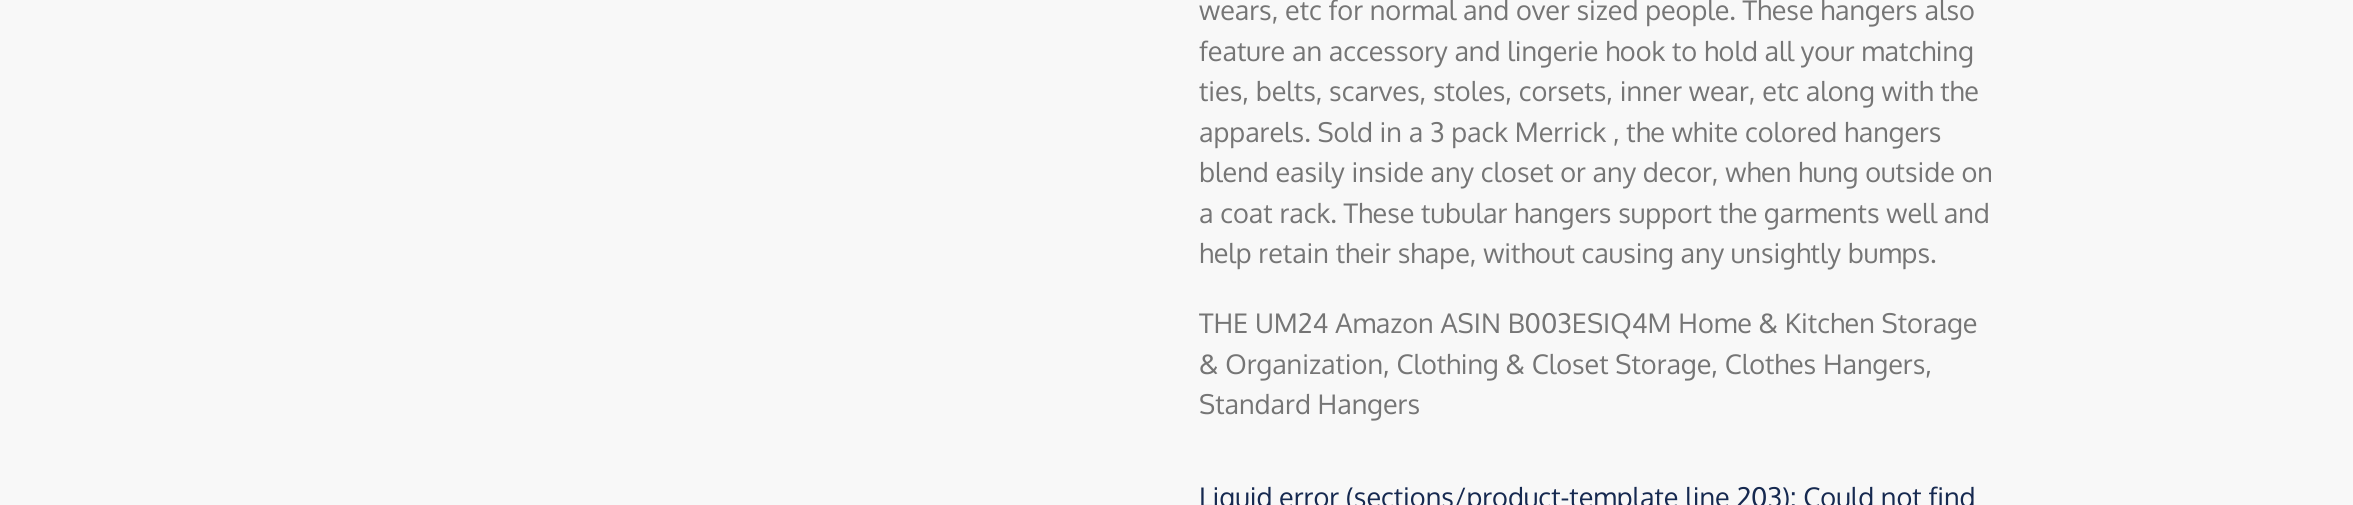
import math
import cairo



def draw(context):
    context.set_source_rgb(248 / 255, 248 / 255, 248 / 255)
    context.paint()
    context.select_font_face("Oxygen")
    context.set_font_size(27)
    context.set_source_rgb(117 / 255, 117 / 255, 117 / 255)
    context.move_to(1199, 20)
    context.show_text("wears, etc for normal and over sized people. These hangers also")
    context.move_to(1199, 61)
    context.show_text("feature an accessory and lingerie hook to hold all your matching")
    context.move_to(1199, 101)
    context.show_text("ties, belts, scarves, stoles, corsets, inner wear, etc along with the")
    context.move_to(1199, 142)
    context.show_text("apparels. Sold in a 3 pack Merrick , the white colored hangers")
    context.move_to(1199, 182)
    context.show_text("blend easily inside any closet or any decor, when hung outside on")
    context.move_to(1199, 223)
    context.show_text("a coat rack. These tubular hangers support the garments well and")
    context.move_to(1199, 263)
    context.show_text("help retain their shape, without causing any unsightly bumps.")
    context.move_to(1199, 333)
    context.show_text("THE UM24 Amazon ASIN B003ESIQ4M Home & Kitchen Storage")
    context.move_to(1199, 374)
    context.show_text("& Organization, Clothing & Closet Storage, Clothes Hangers,")
    context.move_to(1199, 414)
    context.show_text("Standard Hangers")
    context.set_source_rgb(22 / 255, 41 / 255, 80 / 255)
    context.move_to(1199, 507)
    context.show_text("Liquid error (sections/product-template line 203): Could not find")


surface = cairo.ImageSurface(cairo.Format.RGB24, 2353, 505)
context = cairo.Context(surface)
options = cairo.FontOptions()
options.set_hint_metrics(cairo.HintMetrics.OFF)
options.set_hint_style(cairo.HintStyle.NONE)
context.set_font_options(options)
context.set_miter_limit(4)
draw(context)
surface.write_to_png("out.png")
